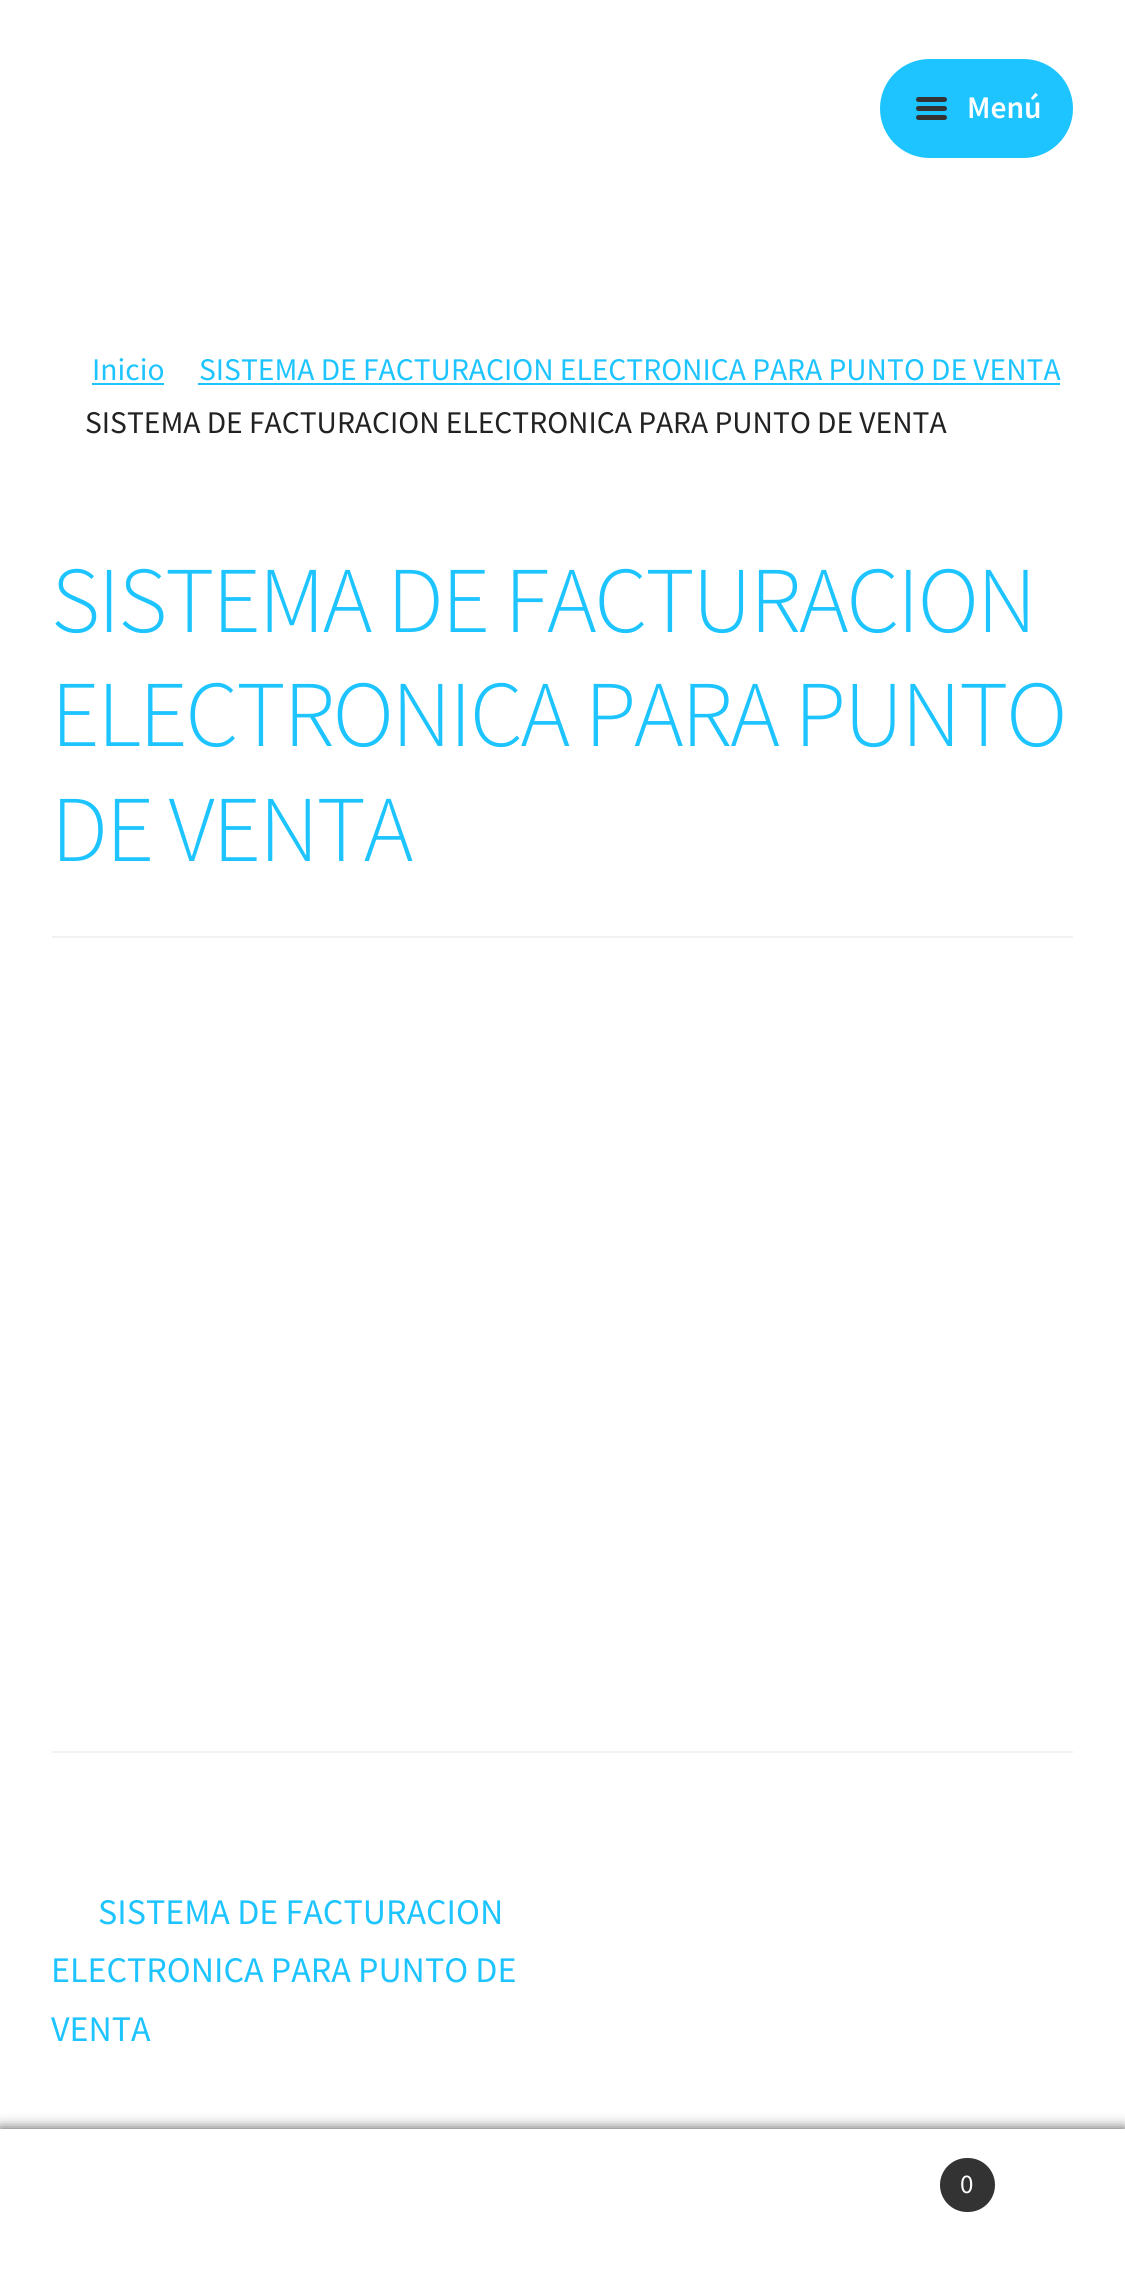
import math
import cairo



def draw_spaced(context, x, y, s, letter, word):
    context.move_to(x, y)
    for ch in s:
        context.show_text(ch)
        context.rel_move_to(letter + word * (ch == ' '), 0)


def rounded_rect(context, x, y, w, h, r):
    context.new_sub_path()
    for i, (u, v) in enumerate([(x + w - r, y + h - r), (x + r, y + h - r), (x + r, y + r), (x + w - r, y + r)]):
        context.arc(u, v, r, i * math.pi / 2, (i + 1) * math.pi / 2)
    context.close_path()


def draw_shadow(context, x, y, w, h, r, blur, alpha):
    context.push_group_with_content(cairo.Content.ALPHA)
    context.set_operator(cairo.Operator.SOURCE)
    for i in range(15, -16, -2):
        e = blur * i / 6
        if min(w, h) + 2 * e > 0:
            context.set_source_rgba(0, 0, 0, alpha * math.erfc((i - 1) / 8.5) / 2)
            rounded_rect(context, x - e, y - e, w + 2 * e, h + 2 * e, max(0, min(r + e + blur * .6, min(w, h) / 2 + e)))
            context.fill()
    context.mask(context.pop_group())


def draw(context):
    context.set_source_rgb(1, 1, 1)
    context.paint()
    context.set_source_rgb(29 / 255, 196 / 255, 1)
    rounded_rect(context, 882.5, 61.5, 188, 94, 47)
    context.fill_preserve()
    context.set_line_width(5)
    context.stroke()
    context.set_source_rgb(51 / 255, 51 / 255, 51 / 255)
    rounded_rect(context, 916, 97, 31, 5, 2.5)
    context.fill()
    rounded_rect(context, 916, 106, 31, 5, 2.5)
    context.fill()
    rounded_rect(context, 916, 115, 31, 5, 2.5)
    context.fill()
    context.set_source_rgb(29 / 255, 196 / 255, 1)
    context.rectangle(92, 383, 72, 2)
    context.fill()
    context.rectangle(198, 383, 862, 2)
    context.fill()
    context.set_source_rgb(242 / 255, 242 / 255, 242 / 255)
    context.rectangle(52, 936, 1021, 2)
    context.fill()
    context.rectangle(52, 1751, 1021, 2)
    context.fill()
    context.set_source_rgb(0, 0, 0)
    draw_shadow(context, 0, 2129, 1125, 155, 0, 7, 0.7)
    context.set_source_rgb(1, 1, 1)
    context.rectangle(0, 2129, 1125, 2)
    context.fill()
    context.rectangle(0, 2131, 1125, 151)
    context.fill()
    context.set_source_rgb(51 / 255, 51 / 255, 51 / 255)
    rounded_rect(context, 939, 2157, 57, 56, 28)
    context.fill_preserve()
    context.set_source_rgb(1, 1, 1)
    context.set_line_width(2)
    context.stroke()
    context.select_font_face("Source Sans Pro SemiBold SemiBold")
    context.set_font_size(31.5)
    context.move_to(967, 118)
    context.show_text("Menú")
    context.select_font_face("Source Sans Pro")
    context.set_source_rgb(29 / 255, 196 / 255, 1)
    context.move_to(92, 380)
    context.show_text("Inicio")
    context.move_to(199, 380)
    context.show_text("SISTEMA DE FACTURACION ELECTRONICA PARA PUNTO DE VENTA")
    context.set_source_rgb(34 / 255, 34 / 255, 34 / 255)
    context.move_to(85, 433)
    context.show_text("SISTEMA DE FACTURACION ELECTRONICA PARA PUNTO DE VENTA")
    context.select_font_face("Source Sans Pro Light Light")
    context.set_font_size(94.25)
    context.set_source_rgb(29 / 255, 196 / 255, 1)
    draw_spaced(context, 51, 632, "SISTEMA DE FACTURACION", -2.25, 0)
    draw_spaced(context, 51, 746, "ELECTRONICA PARA PUNTO", -2.25, 0)
    draw_spaced(context, 51, 861, "DE VENTA", -2.25, 0)
    context.select_font_face("Source Sans Pro")
    context.set_font_size(36)
    context.move_to(98, 1924)
    context.show_text("SISTEMA DE FACTURACION")
    context.move_to(51, 1982)
    context.show_text("ELECTRONICA PARA PUNTO DE")
    context.move_to(51, 2041)
    context.show_text("VENTA")
    context.set_font_size(27)
    context.set_source_rgb(1, 1, 1)
    context.move_to(960, 2193)
    context.show_text("0")


surface = cairo.ImageSurface(cairo.Format.RGB24, 1125, 2282)
context = cairo.Context(surface)
options = cairo.FontOptions()
options.set_hint_metrics(cairo.HintMetrics.OFF)
options.set_hint_style(cairo.HintStyle.NONE)
context.set_font_options(options)
context.set_miter_limit(4)
draw(context)
surface.write_to_png("out.png")
